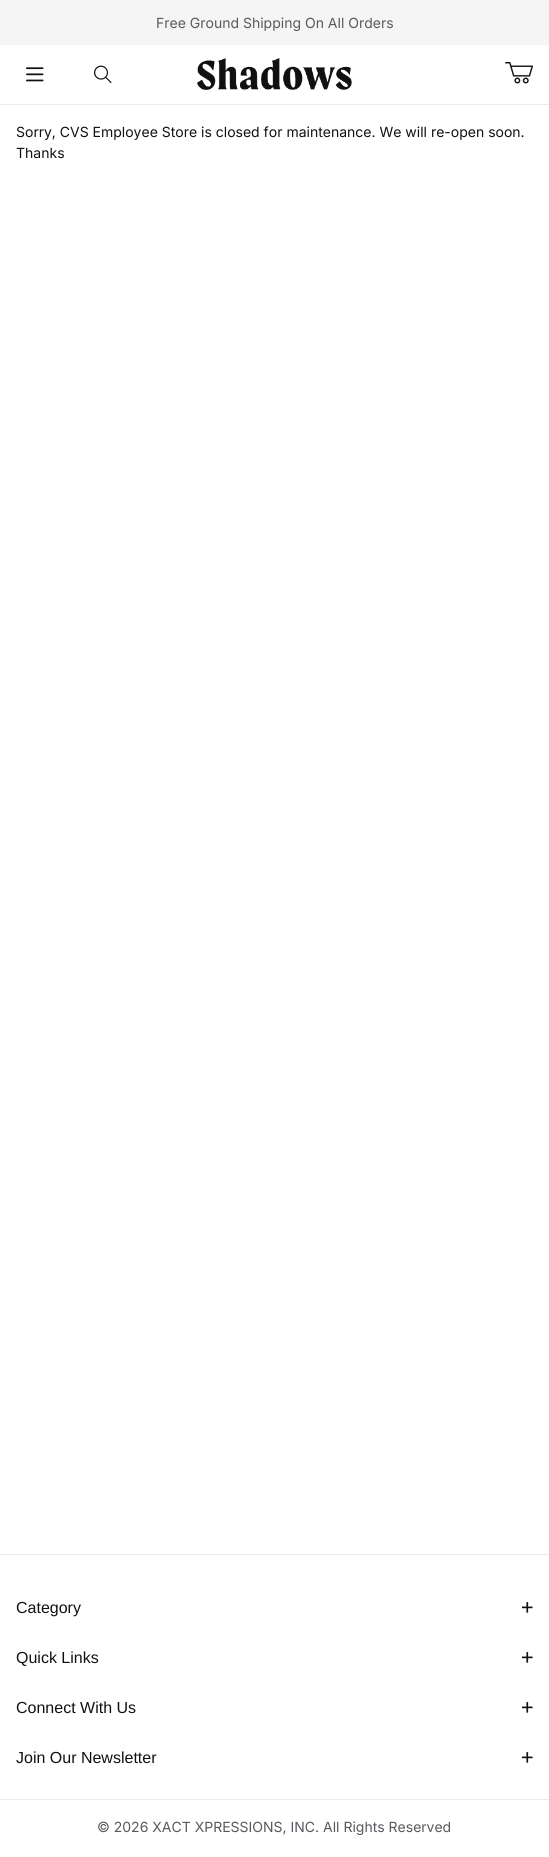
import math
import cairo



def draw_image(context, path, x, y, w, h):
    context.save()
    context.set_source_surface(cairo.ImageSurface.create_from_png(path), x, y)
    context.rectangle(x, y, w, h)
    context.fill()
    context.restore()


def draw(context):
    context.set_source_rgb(1, 1, 1)
    context.paint()
    context.set_source_rgb(234 / 255, 234 / 255, 234 / 255)
    context.rectangle(0, 104, 549, 1)
    context.fill()
    context.set_source_rgb(245 / 255, 245 / 255, 245 / 255)
    context.rectangle(0, 0, 549, 45)
    context.fill()
    draw_image(context, "images/1.png", 26, 67, 18, 15)
    draw_image(context, "images/2.png", 94, 65, 18, 18)
    draw_image(context, "images/3.png", 197, 58, 155, 32)
    draw_image(context, "images/4.png", 505, 62, 28, 22)
    context.set_source_rgb(234 / 255, 234 / 255, 234 / 255)
    context.rectangle(0, 1554, 549, 1)
    context.fill()
    draw_image(context, "images/5.png", 522, 1602, 11, 11)
    draw_image(context, "images/5.png", 522, 1652, 11, 11)
    draw_image(context, "images/5.png", 522, 1702, 11, 11)
    draw_image(context, "images/5.png", 522, 1752, 11, 11)
    context.rectangle(0, 1799, 549, 1)
    context.fill()
    context.select_font_face("Inter")
    context.set_font_size(14)
    context.set_source_rgb(87 / 255, 90 / 255, 93 / 255)
    context.move_to(156, 28)
    context.show_text("Free Ground Shipping On All Orders")
    context.set_source_rgb(17 / 255, 17 / 255, 17 / 255)
    context.move_to(16, 137)
    context.show_text("Sorry, CVS Employee Store is closed for maintenance. We will re-open soon.")
    context.move_to(16, 158)
    context.show_text("Thanks")
    context.select_font_face("Liberation Sans")
    context.set_font_size(16)
    context.move_to(16, 1613)
    context.show_text("Category")
    context.move_to(16, 1663)
    context.show_text("Quick Links")
    context.move_to(16, 1713)
    context.show_text("Connect With Us")
    context.move_to(16, 1763)
    context.show_text("Join Our Newsletter")
    context.select_font_face("Inter")
    context.set_font_size(14)
    context.set_source_rgb(87 / 255, 90 / 255, 93 / 255)
    context.move_to(97, 1832)
    context.show_text("© 2026 XACT XPRESSIONS, INC. All Rights Reserved")


surface = cairo.ImageSurface(cairo.Format.RGB24, 549, 1857)
context = cairo.Context(surface)
options = cairo.FontOptions()
options.set_hint_metrics(cairo.HintMetrics.OFF)
options.set_hint_style(cairo.HintStyle.NONE)
context.set_font_options(options)
context.set_miter_limit(4)
draw(context)
surface.write_to_png("out.png")
